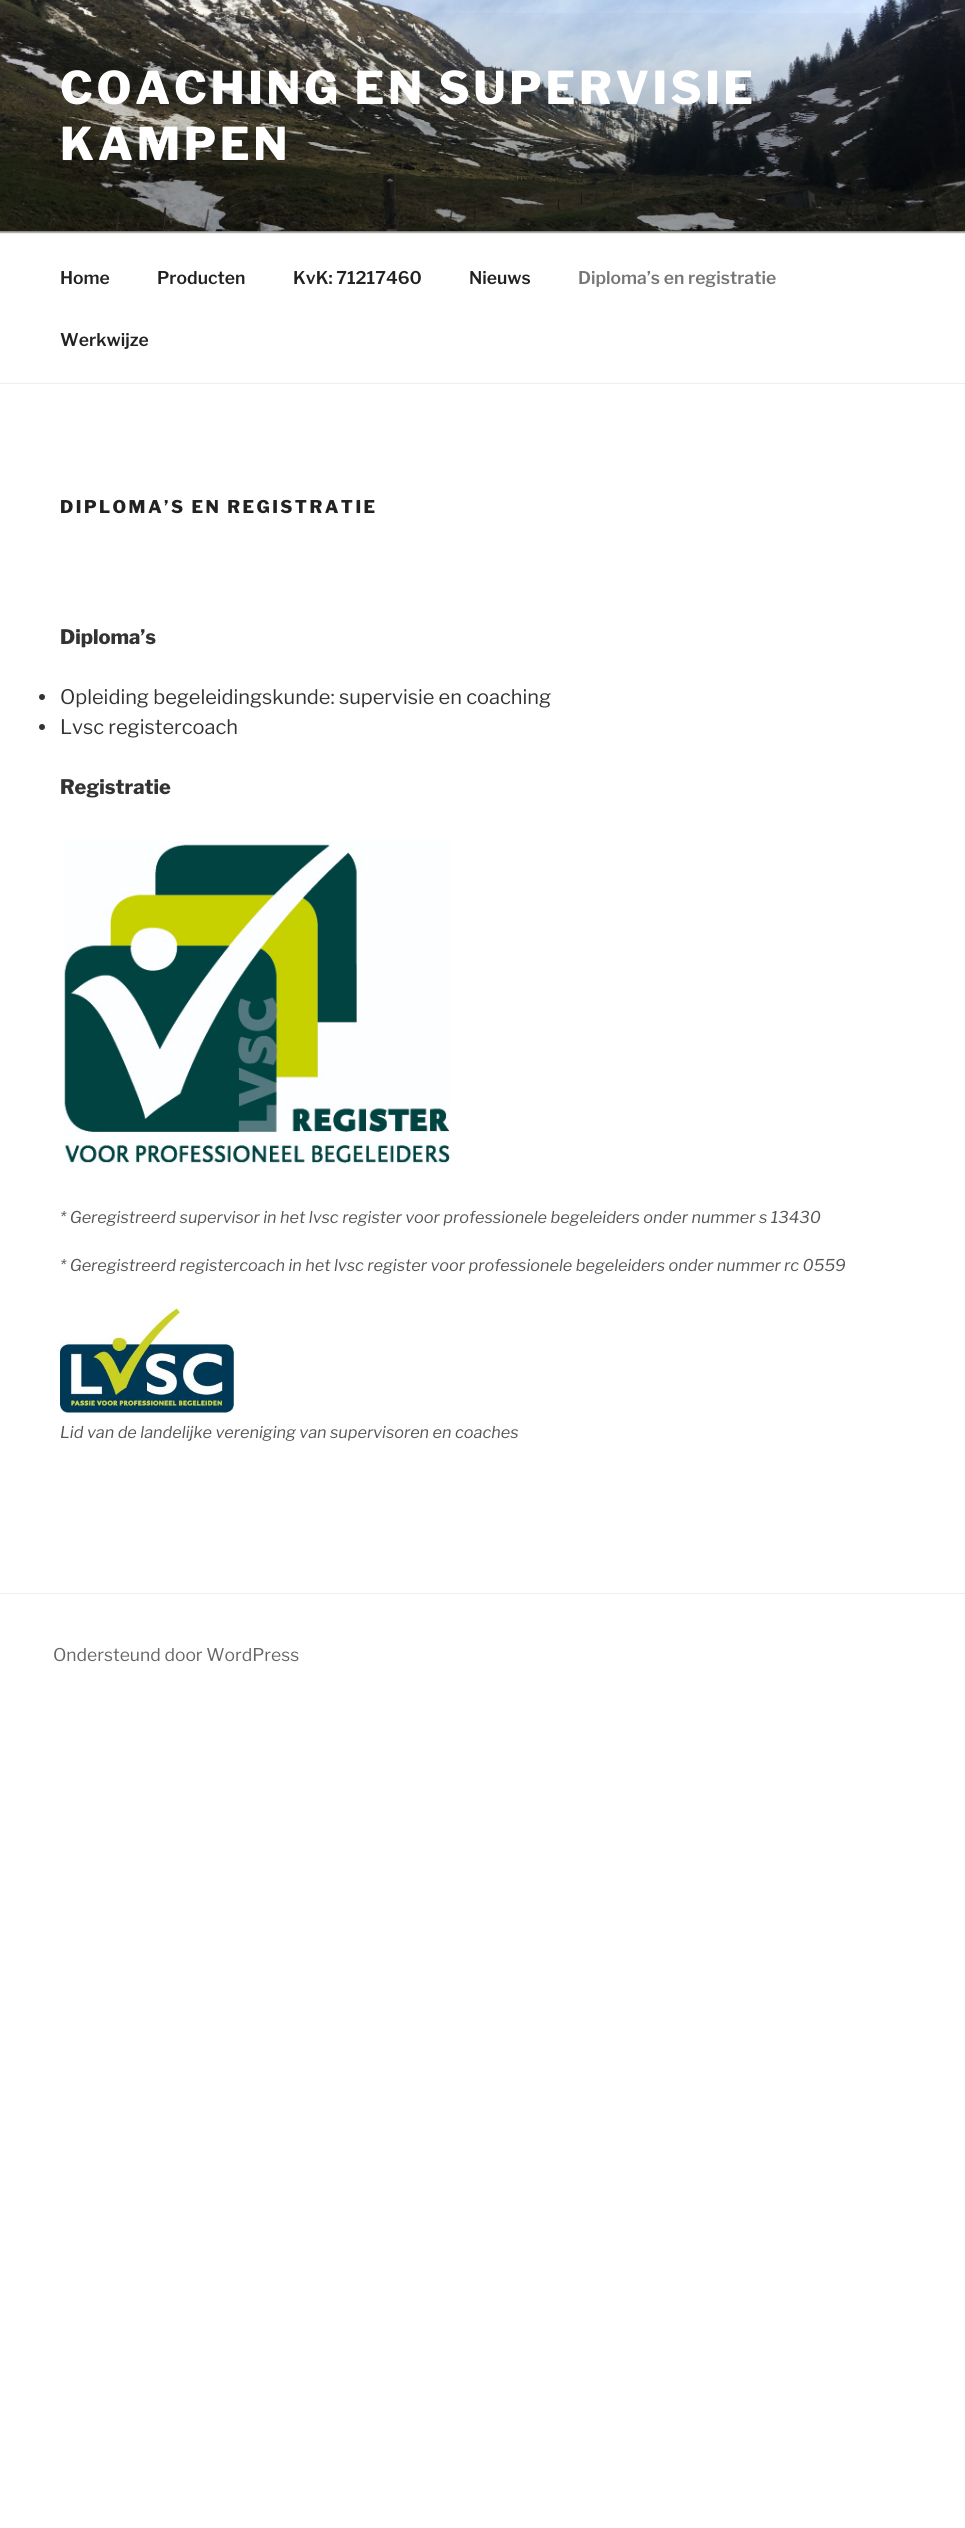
import math
import cairo



def draw_spaced(context, x, y, s, letter, word):
    context.move_to(x, y)
    for ch in s:
        context.show_text(ch)
        context.rel_move_to(letter + word * (ch == ' '), 0)


def draw_image(context, path, x, y, w, h):
    context.save()
    context.set_source_surface(cairo.ImageSurface.create_from_png(path), x, y)
    context.rectangle(x, y, w, h)
    context.fill()
    context.restore()


def draw(context):
    context.set_source_rgb(1, 1, 1)
    context.paint()
    context.set_source_rgb(250 / 255, 250 / 255, 250 / 255)
    context.rectangle(0, 231, 965, 2)
    context.fill()
    draw_image(context, "images/1.png", 0, 0, 965, 232)
    gradient = cairo.LinearGradient(483, 0, 483, 233)
    gradient.add_color_stop_rgba(0, 0, 0, 0, 0)
    gradient.add_color_stop_rgba(0.75, 0, 0, 0, 0.3)
    gradient.add_color_stop_rgba(1, 0, 0, 0, 0.3)
    context.set_source(gradient)
    context.rectangle(0, 13, 965, 220)
    context.fill()
    context.set_source_rgb(238 / 255, 238 / 255, 238 / 255)
    context.rectangle(0, 233, 965, 1)
    context.fill()
    context.rectangle(0, 383, 965, 1)
    context.fill()
    context.set_source_rgb(51 / 255, 51 / 255, 51 / 255)
    context.arc(42, 697, 3, 0, 2 * math.pi)
    context.fill()
    context.arc(42, 727, 3, 0, 2 * math.pi)
    context.fill()
    draw_image(context, "images/2.png", 64, 841, 386, 323)
    draw_image(context, "images/3.png", 60, 1308, 174, 105)
    context.set_source_rgb(238 / 255, 238 / 255, 238 / 255)
    context.rectangle(0, 1593, 965, 1)
    context.fill()
    context.select_font_face("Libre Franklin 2 Thin")
    context.set_font_size(45)
    context.set_source_rgb(1, 1, 1)
    draw_spaced(context, 60, 104, "COACHING EN SUPERVISIE", 3.6, 0)
    draw_spaced(context, 60, 160, "KAMPEN", 3.6, 0)
    context.select_font_face("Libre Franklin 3 Thin")
    context.set_font_size(17.5)
    context.set_source_rgb(34 / 255, 34 / 255, 34 / 255)
    context.move_to(60, 284)
    context.show_text("Home")
    context.move_to(157, 284)
    context.show_text("Producten")
    context.move_to(293, 284)
    context.show_text("KvK: 71217460")
    context.move_to(469, 284)
    context.show_text("Nieuws")
    context.set_source_rgb(118 / 255, 118 / 255, 118 / 255)
    context.move_to(578, 284)
    context.show_text("Diploma’s en registratie")
    context.set_source_rgb(34 / 255, 34 / 255, 34 / 255)
    context.move_to(60, 346)
    context.show_text("Werkwijze")
    context.select_font_face("Libre Franklin 2 Thin")
    draw_spaced(context, 60, 513, "DIPLOMA’S EN REGISTRATIE", 2.45, 0)
    context.set_font_size(20)
    context.set_source_rgb(51 / 255, 51 / 255, 51 / 255)
    context.move_to(60, 644)
    context.show_text("Diploma’s")
    context.select_font_face("Libre Franklin Thin")
    context.move_to(60, 704)
    context.show_text("Opleiding begeleidingskunde: supervisie en coaching")
    context.move_to(60, 734)
    context.show_text("Lvsc registercoach")
    context.select_font_face("Libre Franklin 2 Thin")
    context.move_to(60, 794)
    context.show_text("Registratie")
    context.select_font_face("Libre Franklin Thin", cairo.FontSlant.ITALIC)
    context.set_font_size(16.25)
    context.set_source_rgb(85 / 255, 85 / 255, 85 / 255)
    context.move_to(60, 1223)
    context.show_text("* Geregistreerd supervisor in het lvsc register voor professionele begeleiders onder nummer s 13430")
    context.move_to(60, 1271)
    context.show_text("* Geregistreerd registercoach in het lvsc register voor professionele begeleiders onder nummer rc 0559")
    context.move_to(60, 1438)
    context.show_text("Lid van de landelijke vereniging van supervisoren en coaches")
    context.select_font_face("Libre Franklin Thin")
    context.set_font_size(17.5)
    context.set_source_rgb(102 / 255, 102 / 255, 102 / 255)
    context.move_to(53, 1661)
    context.show_text("Ondersteund door WordPress")


surface = cairo.ImageSurface(cairo.Format.RGB24, 965, 2528)
context = cairo.Context(surface)
options = cairo.FontOptions()
options.set_hint_metrics(cairo.HintMetrics.OFF)
options.set_hint_style(cairo.HintStyle.NONE)
context.set_font_options(options)
context.set_miter_limit(4)
draw(context)
surface.write_to_png("out.png")
